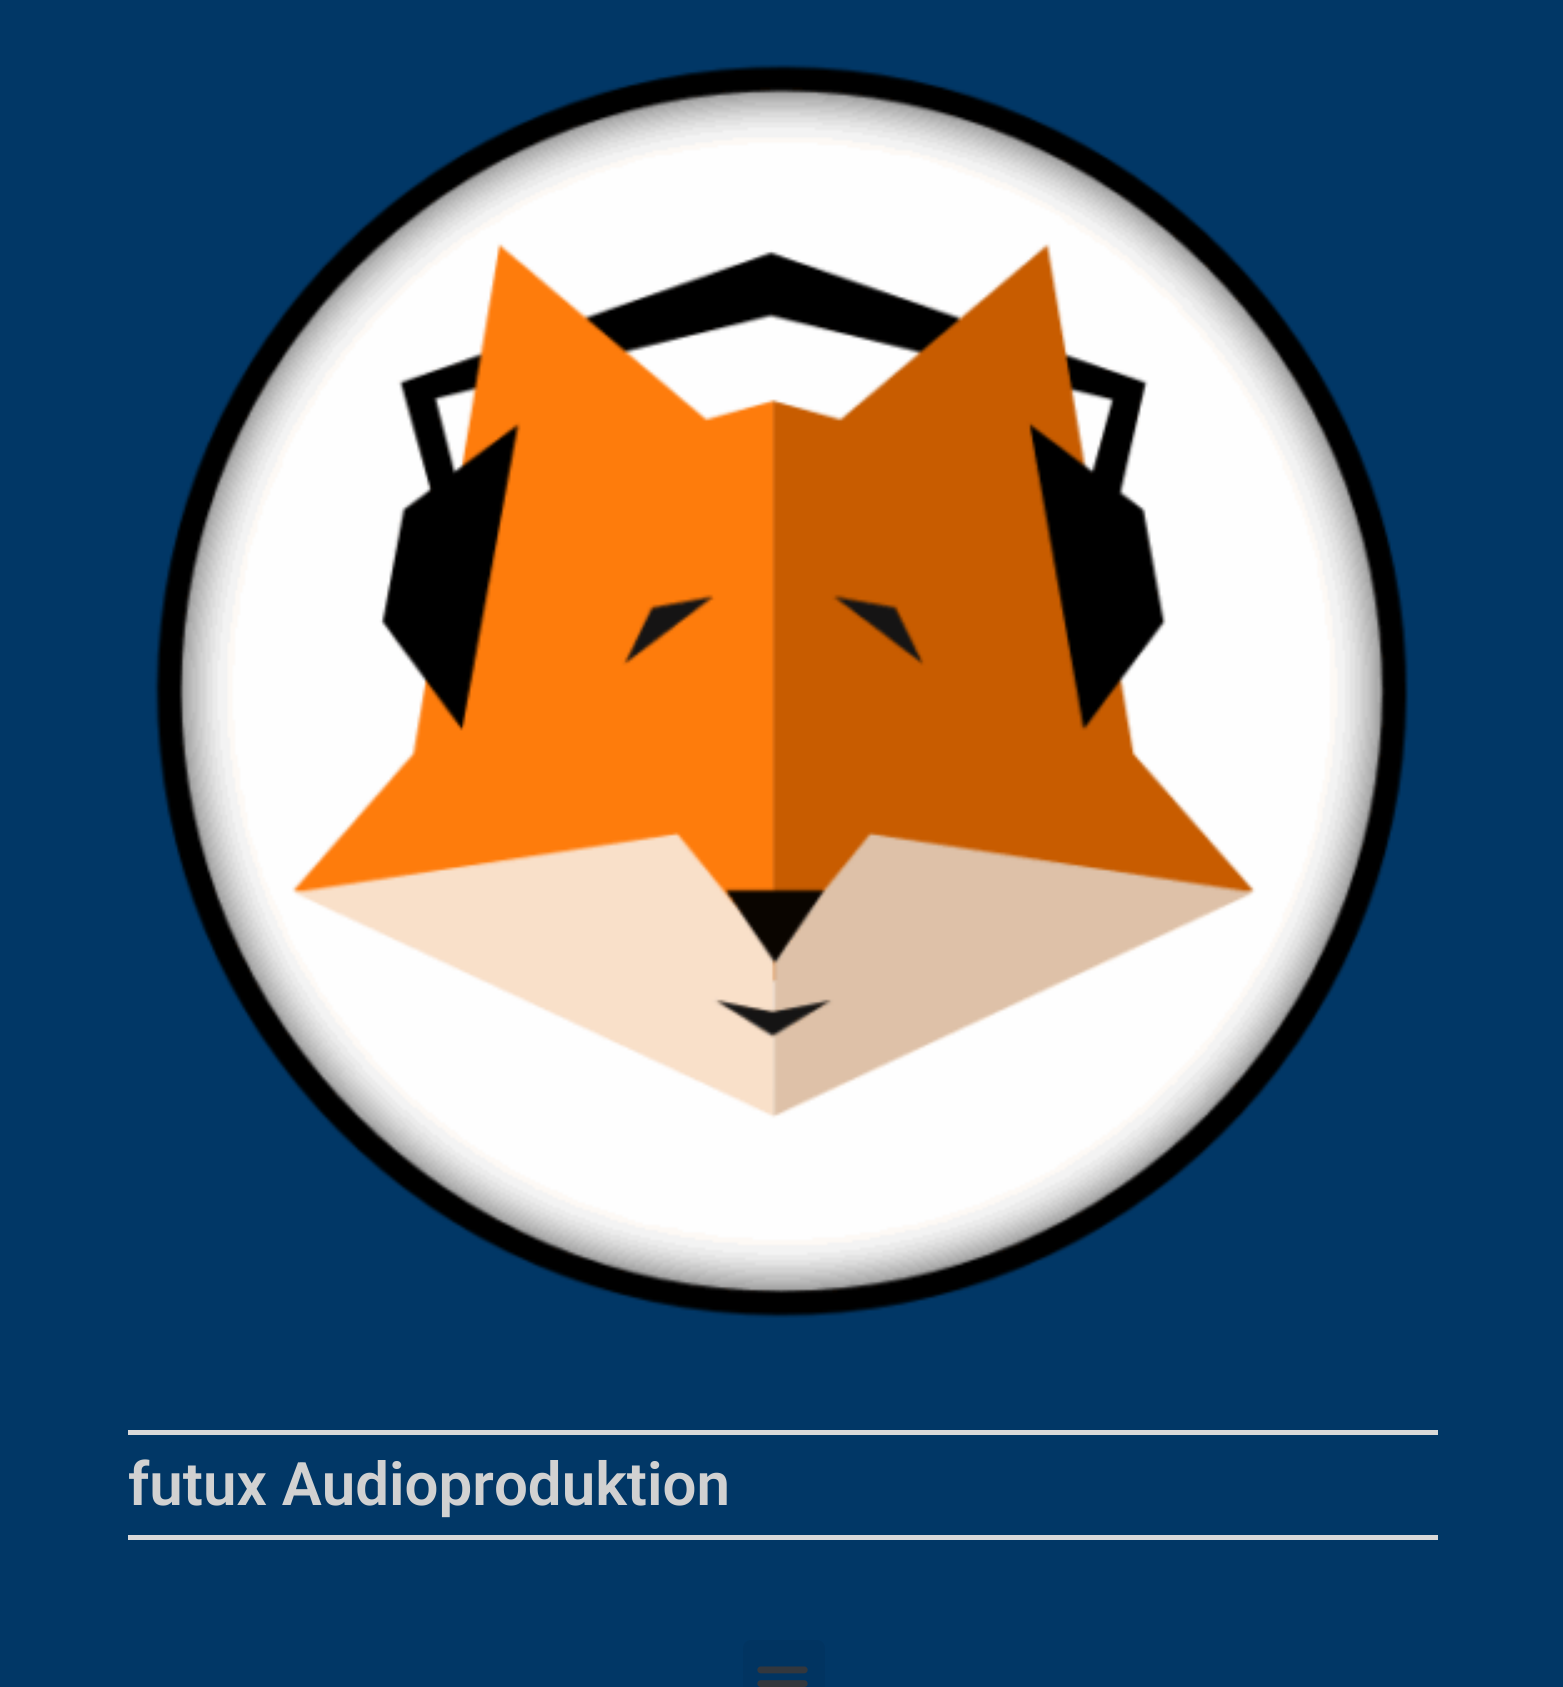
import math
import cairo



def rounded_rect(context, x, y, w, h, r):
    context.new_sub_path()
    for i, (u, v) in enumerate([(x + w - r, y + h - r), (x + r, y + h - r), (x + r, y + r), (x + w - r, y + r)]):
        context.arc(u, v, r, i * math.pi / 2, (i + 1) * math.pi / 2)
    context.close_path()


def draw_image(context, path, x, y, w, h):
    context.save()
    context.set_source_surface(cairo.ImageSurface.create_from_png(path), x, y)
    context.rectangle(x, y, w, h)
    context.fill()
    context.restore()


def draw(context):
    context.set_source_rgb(1 / 255, 55 / 255, 102 / 255)
    context.paint()
    draw_image(context, "images/1.png", 154, 64, 1255, 1254)
    context.set_source_rgb(217 / 255, 217 / 255, 217 / 255)
    context.rectangle(128, 1430, 1310, 5)
    context.fill()
    context.rectangle(128, 1535, 1310, 5)
    context.fill()
    context.set_source_rgb(1 / 255, 52 / 255, 97 / 255)
    rounded_rect(context, 743, 1640, 82, 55, 8)
    context.fill()
    draw_image(context, "images/2.png", 757, 1666, 51, 21)
    context.select_font_face("Roboto SemiBold")
    context.set_font_size(60)
    context.set_source_rgb(209 / 255, 209 / 255, 209 / 255)
    context.move_to(128, 1505)
    context.show_text("futux Audioproduktion")


surface = cairo.ImageSurface(cairo.Format.RGB24, 1563, 1687)
context = cairo.Context(surface)
options = cairo.FontOptions()
options.set_hint_metrics(cairo.HintMetrics.OFF)
options.set_hint_style(cairo.HintStyle.NONE)
context.set_font_options(options)
context.set_miter_limit(4)
draw(context)
surface.write_to_png("out.png")
